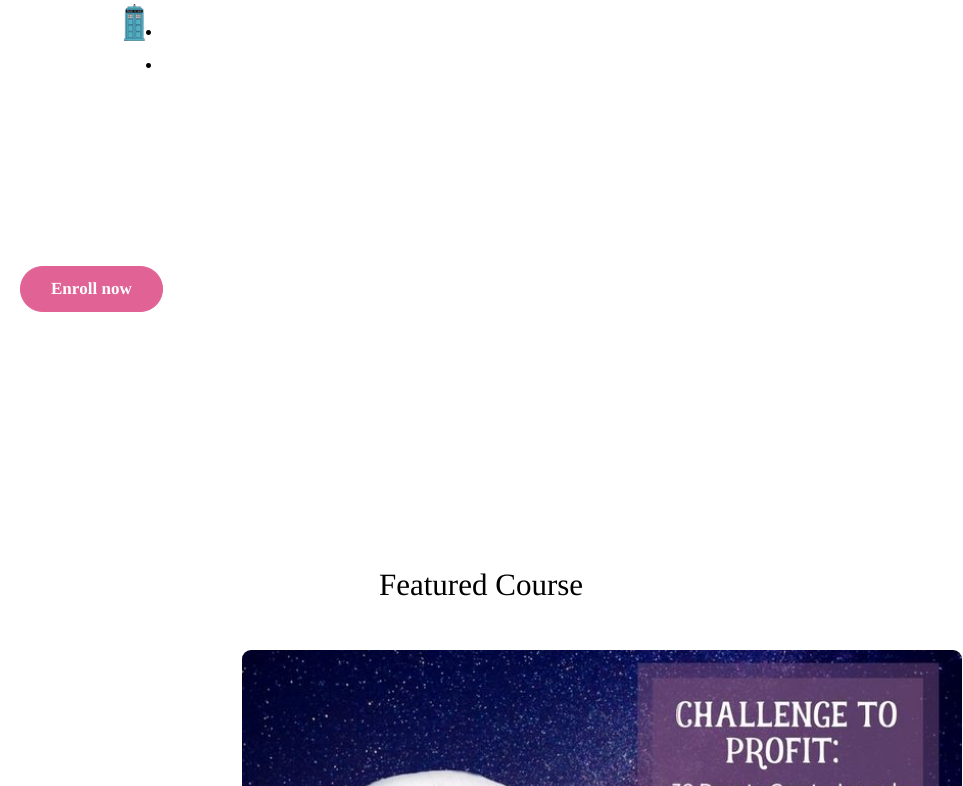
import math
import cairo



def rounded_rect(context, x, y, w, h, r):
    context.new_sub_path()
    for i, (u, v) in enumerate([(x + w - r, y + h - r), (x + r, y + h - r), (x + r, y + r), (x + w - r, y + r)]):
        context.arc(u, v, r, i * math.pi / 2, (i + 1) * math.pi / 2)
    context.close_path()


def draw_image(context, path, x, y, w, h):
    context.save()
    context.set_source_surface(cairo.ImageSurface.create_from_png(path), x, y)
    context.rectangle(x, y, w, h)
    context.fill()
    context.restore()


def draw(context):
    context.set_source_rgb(1, 1, 1)
    context.paint()
    draw_image(context, "images/1.png", 123, 4, 23, 37)
    context.set_source_rgb(0, 0, 0)
    context.arc(148.5, 32.5, 2.5, 0, 2 * math.pi)
    context.fill()
    context.arc(148.5, 65.5, 2.5, 0, 2 * math.pi)
    context.fill()
    context.set_source_rgb(225 / 255, 98 / 255, 149 / 255)
    rounded_rect(context, 20.5, 266.5, 142, 45, 22.5)
    context.fill_preserve()
    context.set_line_width(1)
    context.stroke()
    context.set_source_rgb(247 / 255, 247 / 255, 247 / 255)
    rounded_rect(context, 241.5, 649.5, 721, 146, 8.5)
    context.fill_preserve()
    context.set_source_rgb(1, 1, 1)
    context.stroke()
    draw_image(context, "images/2.png", 242, 650, 720, 136)
    context.select_font_face("Liberation Serif", cairo.FontSlant.NORMAL, cairo.FontWeight.BOLD)
    context.set_font_size(17)
    context.move_to(51, 294)
    context.show_text("Enroll now")
    context.select_font_face("Liberation Serif")
    context.set_font_size(31)
    context.set_source_rgb(0, 0, 0)
    context.move_to(379, 595)
    context.show_text("Featured Course")


surface = cairo.ImageSurface(cairo.Format.RGB24, 963, 786)
context = cairo.Context(surface)
options = cairo.FontOptions()
options.set_hint_metrics(cairo.HintMetrics.OFF)
options.set_hint_style(cairo.HintStyle.NONE)
context.set_font_options(options)
context.set_miter_limit(4)
draw(context)
surface.write_to_png("out.png")
